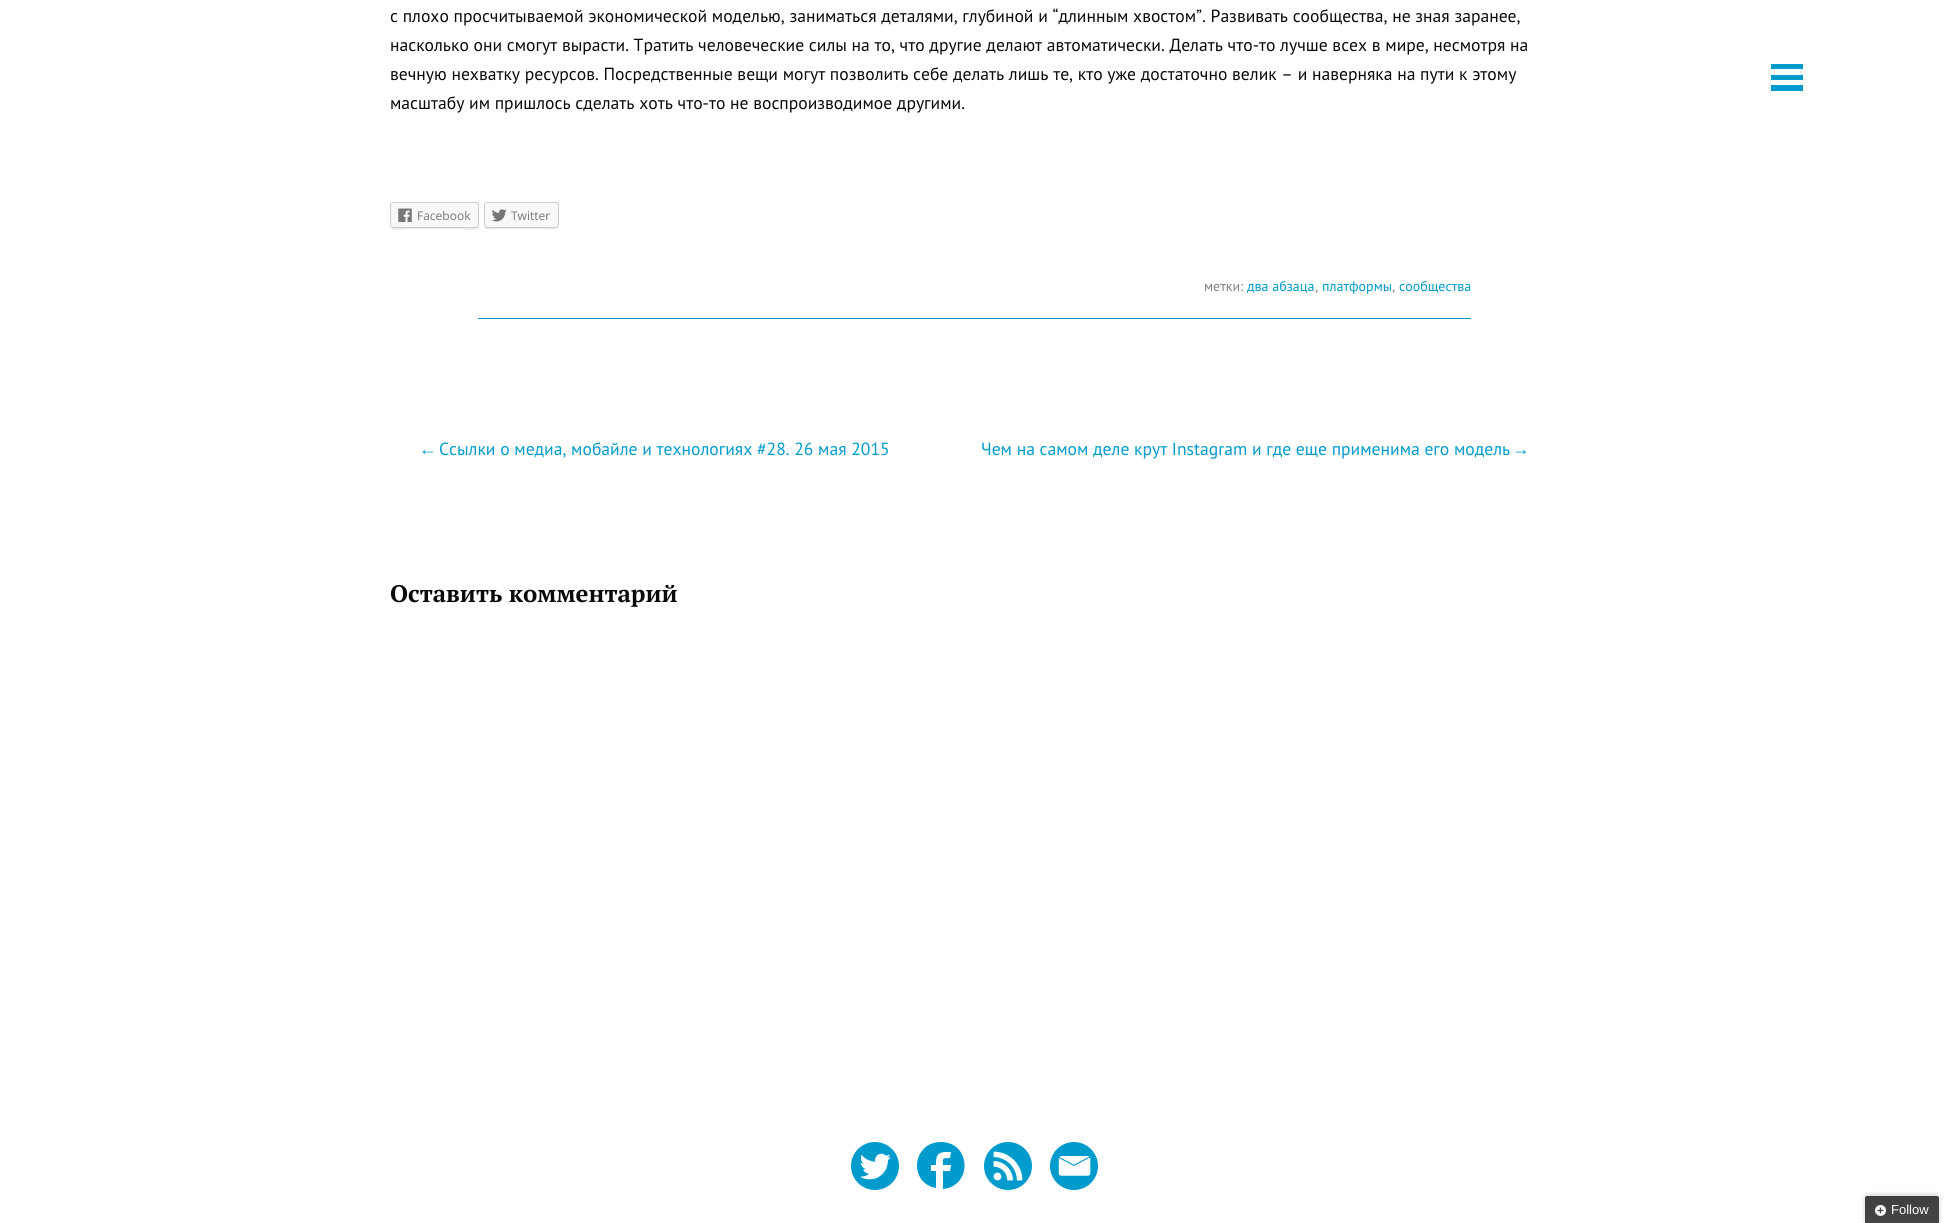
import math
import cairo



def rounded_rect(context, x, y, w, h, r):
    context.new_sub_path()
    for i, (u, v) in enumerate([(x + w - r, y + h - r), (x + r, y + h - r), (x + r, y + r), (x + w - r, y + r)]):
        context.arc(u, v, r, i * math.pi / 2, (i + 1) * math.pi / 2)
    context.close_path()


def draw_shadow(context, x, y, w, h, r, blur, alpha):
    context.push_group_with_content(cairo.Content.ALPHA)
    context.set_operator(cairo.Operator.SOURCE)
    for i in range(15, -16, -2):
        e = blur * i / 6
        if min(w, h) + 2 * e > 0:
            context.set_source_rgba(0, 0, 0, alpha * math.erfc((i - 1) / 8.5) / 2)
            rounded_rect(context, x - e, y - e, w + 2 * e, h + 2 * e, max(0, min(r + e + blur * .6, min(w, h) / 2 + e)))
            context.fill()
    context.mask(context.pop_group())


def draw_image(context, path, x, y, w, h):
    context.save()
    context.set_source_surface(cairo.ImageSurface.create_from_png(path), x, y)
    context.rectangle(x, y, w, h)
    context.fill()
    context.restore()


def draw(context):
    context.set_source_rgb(1, 1, 1)
    context.paint()
    context.set_source_rgb(235 / 255, 235 / 255, 235 / 255)
    context.new_path()
    context.move_to(390, 225)
    context.curve_to(390, 233, 403, 229, 407, 229)
    context.line_to(462, 229)
    context.curve_to(466, 229, 479, 233, 479, 225)
    context.curve_to(479, 227, 478, 228, 476, 228)
    context.line_to(393, 228)
    context.curve_to(391, 228, 390, 227, 390, 225)
    context.close_path()
    context.fill()
    context.set_source_rgb(248 / 255, 248 / 255, 248 / 255)
    rounded_rect(context, 390.5, 202.5, 88, 25, 2.5)
    context.fill_preserve()
    context.set_source_rgb(204 / 255, 204 / 255, 204 / 255)
    context.set_line_width(1)
    context.stroke()
    draw_image(context, "images/1.png", 398, 208, 14, 14)
    context.set_source_rgb(235 / 255, 235 / 255, 235 / 255)
    context.new_path()
    context.move_to(484, 225)
    context.curve_to(484, 232, 494, 229, 498, 229)
    context.line_to(544, 229)
    context.curve_to(549, 229, 559, 232, 559, 225)
    context.curve_to(559, 227, 558, 228, 556, 228)
    context.line_to(487, 228)
    context.curve_to(485, 228, 484, 227, 484, 225)
    context.close_path()
    context.fill()
    context.set_source_rgb(248 / 255, 248 / 255, 248 / 255)
    rounded_rect(context, 484.5, 202.5, 74, 25, 2.5)
    context.fill_preserve()
    context.set_source_rgb(204 / 255, 204 / 255, 204 / 255)
    context.stroke()
    draw_image(context, "images/2.png", 492, 209, 15, 13)
    context.set_source_rgb(0, 155 / 255, 205 / 255)
    context.rectangle(478, 318, 993, 1)
    context.fill()
    context.rectangle(1771, 64, 32, 5)
    context.fill()
    context.rectangle(1771, 75, 32, 5)
    context.fill()
    context.rectangle(1771, 85, 32, 6)
    context.fill()
    draw_image(context, "images/3.png", 851, 1142, 48, 48)
    context.set_fill_rule(cairo.FillRule.EVEN_ODD)
    context.new_path()
    context.move_to(941, 1142)
    context.curve_to(971, 1142, 973, 1186, 943, 1189)
    context.line_to(943, 1171)
    context.line_to(950, 1171)
    context.line_to(951, 1165)
    context.line_to(943, 1165)
    context.curve_to(943, 1158, 942, 1158, 950, 1158)
    context.line_to(951, 1152)
    context.line_to(946, 1152)
    context.curve_to(936, 1152, 936, 1158, 936, 1165)
    context.line_to(931, 1165)
    context.line_to(931, 1171)
    context.line_to(936, 1171)
    context.line_to(936, 1188)
    context.curve_to(908, 1183, 912, 1142, 941, 1142)
    context.close_path()
    context.fill()
    draw_image(context, "images/4.png", 984, 1142, 48, 48)
    draw_image(context, "images/5.png", 1050, 1142, 48, 48)
    context.set_source_rgb(0, 0, 0)
    draw_shadow(context, 1865, 1195, 74, 28, 2, 2.5, 0.2)
    gradient = cairo.LinearGradient(1865, 1196, 1865, 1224)
    gradient.add_color_stop_rgba(0, 63 / 255, 63 / 255, 63 / 255, 1)
    gradient.add_color_stop_rgba(1, 70 / 255, 70 / 255, 70 / 255, 1)
    context.set_source(gradient)
    context.new_path()
    context.move_to(1867, 1196)
    context.line_to(1937, 1196)
    context.curve_to(1938, 1196, 1939, 1197, 1939, 1198)
    context.line_to(1939, 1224)
    context.line_to(1865, 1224)
    context.line_to(1865, 1198)
    context.curve_to(1865, 1197, 1866, 1196, 1867, 1196)
    context.close_path()
    context.fill()
    draw_image(context, "images/6.png", 1875, 1205, 11, 11)
    context.select_font_face("PT Sans")
    context.set_font_size(17.6)
    context.set_source_rgb(10 / 255, 10 / 255, 10 / 255)
    context.move_to(390, 22)
    context.show_text("с плохо просчитываемой экономической моделью, заниматься деталями, глубиной и “длинным хвостом”. Развивать сообщества, не зная заранее,")
    context.move_to(390, 51)
    context.show_text("насколько они смогут вырасти. Тратить человеческие силы на то, что другие делают автоматически. Делать что-то лучше всех в мире, несмотря на")
    context.move_to(390, 80)
    context.show_text("вечную нехватку ресурсов. Посредственные вещи могут позволить себе делать лишь те, кто уже достаточно велик – и наверняка на пути к этому")
    context.move_to(390, 109)
    context.show_text("масштабу им пришлось сделать хоть что-то не воспроизводимое другими.")
    context.select_font_face("Open Sans")
    context.set_font_size(12)
    context.set_source_rgb(119 / 255, 119 / 255, 119 / 255)
    context.move_to(417, 220)
    context.show_text("Facebook")
    context.move_to(511, 220)
    context.show_text("Twitter")
    context.select_font_face("PT Sans")
    context.set_font_size(14)
    context.set_source_rgb(128 / 255, 128 / 255, 128 / 255)
    context.move_to(1204, 291)
    context.show_text("метки:")
    context.set_source_rgb(0, 155 / 255, 205 / 255)
    context.move_to(1247, 291)
    context.show_text("два абзаца")
    context.set_source_rgb(128 / 255, 128 / 255, 128 / 255)
    context.move_to(1315, 291)
    context.show_text(",")
    context.set_source_rgb(0, 155 / 255, 205 / 255)
    context.move_to(1322, 291)
    context.show_text("платформы")
    context.set_source_rgb(128 / 255, 128 / 255, 128 / 255)
    context.move_to(1392, 291)
    context.show_text(",")
    context.set_source_rgb(0, 155 / 255, 205 / 255)
    context.move_to(1399, 291)
    context.show_text("сообщества")
    context.select_font_face("Liberation Sans")
    context.set_font_size(17.6)
    context.move_to(419, 455)
    context.show_text("←")
    context.select_font_face("PT Sans")
    context.move_to(439, 455)
    context.show_text("Ссылки о медиа, мобайле и технологиях #28. 26 мая 2015")
    context.move_to(981, 455)
    context.show_text("Чем на самом деле крут Instagram и где еще применима его модель")
    context.select_font_face("Liberation Sans")
    context.move_to(1512, 455)
    context.show_text("→")
    context.select_font_face("PT Serif", cairo.FontSlant.NORMAL, cairo.FontWeight.BOLD)
    context.set_font_size(24)
    context.set_source_rgb(10 / 255, 10 / 255, 10 / 255)
    context.move_to(390, 602)
    context.show_text("Оставить комментарий")
    context.select_font_face("Liberation Sans")
    context.set_font_size(13)
    context.set_source_rgb(1, 1, 1)
    context.move_to(1891, 1214)
    context.show_text("Follow")


surface = cairo.ImageSurface(cairo.Format.RGB24, 1949, 1223)
context = cairo.Context(surface)
options = cairo.FontOptions()
options.set_hint_metrics(cairo.HintMetrics.OFF)
options.set_hint_style(cairo.HintStyle.NONE)
context.set_font_options(options)
context.set_miter_limit(4)
draw(context)
surface.write_to_png("out.png")
